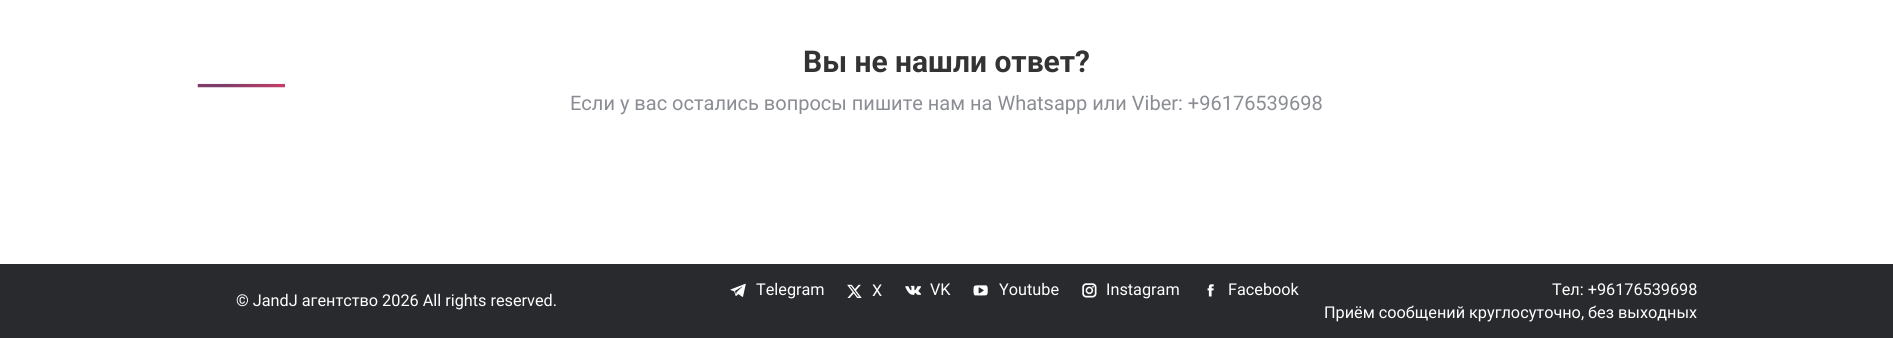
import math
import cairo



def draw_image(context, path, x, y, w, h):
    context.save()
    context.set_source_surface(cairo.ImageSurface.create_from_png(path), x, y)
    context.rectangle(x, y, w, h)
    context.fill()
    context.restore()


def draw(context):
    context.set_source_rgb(1, 1, 1)
    context.paint()
    draw_image(context, "images/1.png", 197, 83, 88, 5)
    context.set_source_rgb(40 / 255, 42 / 255, 45 / 255)
    context.rectangle(0, 264, 1893, 74)
    context.fill()
    draw_image(context, "images/2.png", 730, 283, 16, 14)
    draw_image(context, "images/3.png", 847, 284, 15, 14)
    draw_image(context, "images/4.png", 905, 285, 16, 10)
    draw_image(context, "images/5.png", 973, 285, 15, 11)
    draw_image(context, "images/6.png", 1082, 283, 15, 15)
    draw_image(context, "images/7.png", 1207, 284, 7, 13)
    context.select_font_face("Roboto", cairo.FontSlant.NORMAL, cairo.FontWeight.BOLD)
    context.set_font_size(30)
    context.set_source_rgb(51 / 255, 51 / 255, 51 / 255)
    context.move_to(803, 72)
    context.show_text("Вы не нашли ответ?")
    context.select_font_face("Roboto")
    context.set_font_size(20)
    context.set_source_rgb(139 / 255, 141 / 255, 148 / 255)
    context.move_to(570, 110)
    context.show_text("Если у вас остались вопросы пишите нам на Whatsapp или Viber: +96176539698")
    context.set_font_size(16.25)
    context.set_source_rgb(1, 1, 1)
    context.move_to(236, 306)
    context.show_text("© JandJ агентство 2026 All rights reserved.")
    context.move_to(756, 295)
    context.show_text("Telegram")
    context.move_to(872, 296)
    context.show_text("X")
    context.move_to(930, 295)
    context.show_text("VK")
    context.move_to(999, 295)
    context.show_text("Youtube")
    context.move_to(1106, 295)
    context.show_text("Instagram")
    context.move_to(1228, 295)
    context.show_text("Facebook")
    context.move_to(1552, 295)
    context.show_text("Тел: +96176539698")
    context.move_to(1324, 318)
    context.show_text("Приём сообщений круглосуточно, без выходных")


surface = cairo.ImageSurface(cairo.Format.RGB24, 1893, 338)
context = cairo.Context(surface)
options = cairo.FontOptions()
options.set_hint_metrics(cairo.HintMetrics.OFF)
options.set_hint_style(cairo.HintStyle.NONE)
context.set_font_options(options)
context.set_miter_limit(4)
draw(context)
surface.write_to_png("out.png")
